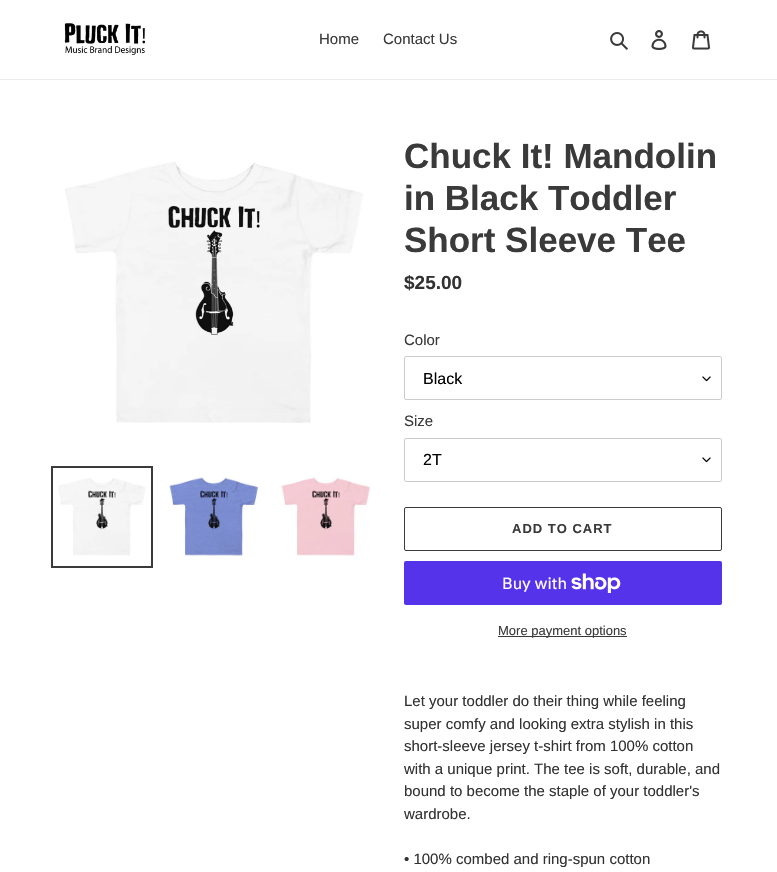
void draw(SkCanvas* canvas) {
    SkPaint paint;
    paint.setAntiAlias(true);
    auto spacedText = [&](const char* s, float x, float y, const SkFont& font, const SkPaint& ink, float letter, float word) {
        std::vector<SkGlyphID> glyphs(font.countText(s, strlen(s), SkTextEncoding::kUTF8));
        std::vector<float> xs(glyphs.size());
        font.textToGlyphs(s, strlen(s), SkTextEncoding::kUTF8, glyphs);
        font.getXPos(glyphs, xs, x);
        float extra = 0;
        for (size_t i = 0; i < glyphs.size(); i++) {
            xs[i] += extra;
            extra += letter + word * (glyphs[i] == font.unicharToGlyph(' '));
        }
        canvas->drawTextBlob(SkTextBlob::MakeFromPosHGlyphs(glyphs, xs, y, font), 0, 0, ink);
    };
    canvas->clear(0xFFFFFFFF);
    paint.setColor(0xFFEBEBEB);
    canvas->drawRect(SkRect::MakeXYWH(0, 79, 777, 1), paint);
    canvas->drawImageRect(SkImages::DeferredFromEncodedData(SkData::MakeFromFileName("img1.png")), SkRect::MakeXYWH(64, 23, 82, 32), SkSamplingOptions());
    SkFont font1(fontMgr->matchFamilyStyle("Liberation Sans", SkFontStyle::Normal()), 15);
    font1.setSubpixel(true);
    paint.setColor(0xFF3A3A3A);
    canvas->drawString("Home", 319, 44, font1, paint);
    canvas->drawString("Contact Us", 383, 44, font1, paint);
    canvas->drawImageRect(SkImages::DeferredFromEncodedData(SkData::MakeFromFileName("img2.png")), SkRect::MakeXYWH(610, 32, 18, 18), SkSamplingOptions());
    canvas->drawImageRect(SkImages::DeferredFromEncodedData(SkData::MakeFromFileName("img3.png")), SkRect::MakeXYWH(651, 30, 16, 20), SkSamplingOptions());
    canvas->drawImageRect(SkImages::DeferredFromEncodedData(SkData::MakeFromFileName("img4.png")), SkRect::MakeXYWH(692, 30, 18, 20), SkSamplingOptions());
    canvas->drawImageRect(SkImages::DeferredFromEncodedData(SkData::MakeFromFileName("img5.png")), SkRect::MakeXYWH(65, 161, 298, 262), SkSamplingOptions());
    paint.setStyle(SkPaint::kStroke_Style);
    paint.setStrokeWidth(2);
    canvas->drawRect(SkRect::MakeXYWH(52, 467, 100, 100), paint);
    canvas->drawImageRect(SkImages::DeferredFromEncodedData(SkData::MakeFromFileName("img6.png")), SkRect::MakeXYWH(58, 478, 88, 78), SkSamplingOptions());
    canvas->drawImageRect(SkImages::DeferredFromEncodedData(SkData::MakeFromFileName("img7.png")), SkRect::MakeXYWH(169, 477, 90, 79), SkSamplingOptions());
    canvas->drawImageRect(SkImages::DeferredFromEncodedData(SkData::MakeFromFileName("img8.png")), SkRect::MakeXYWH(281, 477, 89, 79), SkSamplingOptions());
    SkFont font2(fontMgr->matchFamilyStyle("Liberation Sans", SkFontStyle::Bold()), 35);
    font2.setSubpixel(true);
    paint.setStyle(SkPaint::kFill_Style);
    canvas->drawString("Chuck It! Mandolin", 404, 168, font2, paint);
    canvas->drawString("in Black Toddler", 404, 210, font2, paint);
    canvas->drawString("Short Sleeve Tee", 404, 252, font2, paint);
    SkFont font3(fontMgr->matchFamilyStyle("Liberation Sans", SkFontStyle::Bold()), 19);
    font3.setSubpixel(true);
    paint.setColor(0xFF333232);
    canvas->drawString("$25.00", 404, 289, font3, paint);
    paint.setColor(0xFF3A3A3A);
    canvas->drawString("Color", 404, 345, font1, paint);
    canvas->drawImageRect(SkImages::DeferredFromEncodedData(SkData::MakeFromFileName("img9.png")), SkRect::MakeXYWH(702, 376, 9, 6), SkSamplingOptions());
    paint.setStyle(SkPaint::kStroke_Style);
    paint.setStrokeWidth(1);
    paint.setColor(0xFFCCCCCC);
    canvas->drawRoundRect(SkRect::MakeXYWH(404.5f, 356.5f, 317, 43), 1.5f, 1.5f, paint);
    SkFont font4(fontMgr->matchFamilyStyle("Liberation Sans", SkFontStyle::Normal()), 16);
    font4.setSubpixel(true);
    paint.setStyle(SkPaint::kFill_Style);
    paint.setColor(0xFF000000);
    canvas->drawString("Black", 423, 384, font4, paint);
    paint.setColor(0xFF3A3A3A);
    canvas->drawString("Size", 404, 426, font1, paint);
    canvas->drawImageRect(SkImages::DeferredFromEncodedData(SkData::MakeFromFileName("img9.png")), SkRect::MakeXYWH(702, 457, 9, 6), SkSamplingOptions());
    paint.setStyle(SkPaint::kStroke_Style);
    paint.setColor(0xFFCCCCCC);
    canvas->drawRoundRect(SkRect::MakeXYWH(404.5f, 438.5f, 317, 43), 1.5f, 1.5f, paint);
    paint.setStyle(SkPaint::kFill_Style);
    paint.setColor(0xFF000000);
    canvas->drawString("2T", 423, 465, font4, paint);
    paint.setStyle(SkPaint::kStroke_Style);
    paint.setColor(0xFF3A3A3A);
    canvas->drawRoundRect(SkRect::MakeXYWH(404.5f, 507.5f, 317, 43), 1.5f, 1.5f, paint);
    SkFont font5(fontMgr->matchFamilyStyle("Liberation Sans", SkFontStyle::Bold()), 13);
    font5.setSubpixel(true);
    paint.setStyle(SkPaint::kFill_Style);
    spacedText("ADD TO CART", 512, 533, font5, paint, 1, 0);
    paint.setColor(0xFF5433EB);
    canvas->drawRoundRect(SkRect::MakeXYWH(404, 561, 318, 44), 2, 2, paint);
    SkFont font6(fontMgr->matchFamilyStyle("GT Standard", SkFontStyle::Normal()), 16);
    font6.setSubpixel(true);
    paint.setColor(0xFFFFFFFF);
    canvas->drawString("Buy with", 502, 589, font6, paint);
    canvas->drawImageRect(SkImages::DeferredFromEncodedData(SkData::MakeFromFileName("img10.png")), SkRect::MakeXYWH(571, 573, 50, 20), SkSamplingOptions());
    paint.setColor(0xFF3A3A3A);
    canvas->drawRect(SkRect::MakeXYWH(498, 636, 129, 1), paint);
    SkFont font7(fontMgr->matchFamilyStyle("Liberation Sans", SkFontStyle::Normal()), 13);
    font7.setSubpixel(true);
    canvas->drawString("More payment options", 498, 635, font7, paint);
    paint.setColor(0xFF333232);
    canvas->drawString("Let your toddler do their thing while feeling", 404, 706, font1, paint);
    canvas->drawString("super comfy and looking extra stylish in this", 404, 729, font1, paint);
    canvas->drawString("short-sleeve jersey t-shirt from 100% cotton", 404, 751, font1, paint);
    canvas->drawString("with a unique print. The tee is soft, durable, and", 404, 774, font1, paint);
    canvas->drawString("bound to become the staple of your toddler's", 404, 796, font1, paint);
    canvas->drawString("wardrobe.", 404, 819, font1, paint);
    canvas->drawString("• 100% combed and ring-spun cotton", 404, 864, font1, paint);
}
